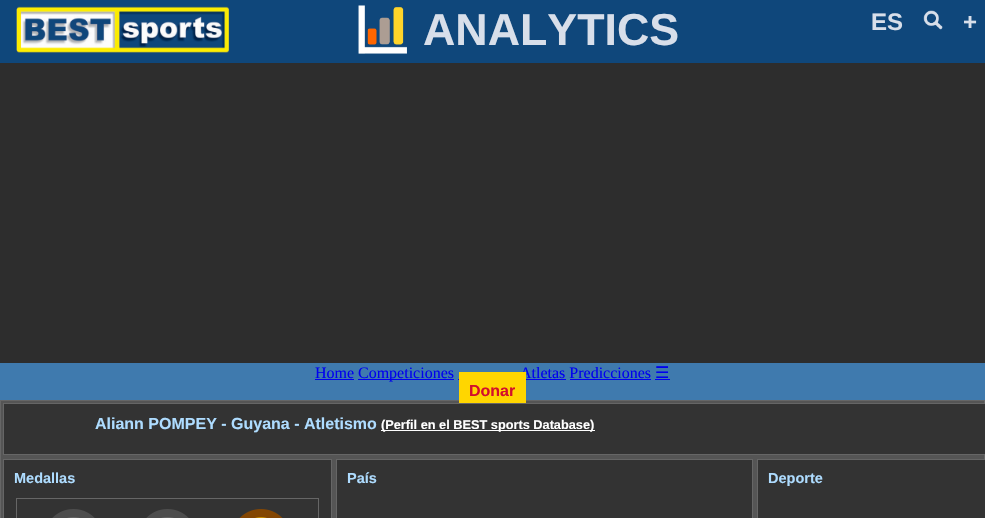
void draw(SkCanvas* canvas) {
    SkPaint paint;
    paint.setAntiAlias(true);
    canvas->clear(0xFF2D2D2D);
    paint.setColor(0xFF0F477B);
    canvas->drawRect(SkRect::MakeXYWH(0, 0, 985, 63), paint);
    canvas->drawImageRect(SkImages::DeferredFromEncodedData(SkData::MakeFromFileName("img1.png")), SkRect::MakeXYWH(16, 6, 214, 51), SkSamplingOptions());
    canvas->drawImageRect(SkImages::DeferredFromEncodedData(SkData::MakeFromFileName("img2.png")), SkRect::MakeXYWH(358, 5, 49, 49), SkSamplingOptions());
    SkFont font1(fontMgr->matchFamilyStyle("Liberation Sans", SkFontStyle::Bold()), 44.75f);
    font1.setSubpixel(true);
    paint.setColor(0xFFD8DFEA);
    canvas->drawString("ANALYTICS", 423, 45, font1, paint);
    SkFont font2(fontMgr->matchFamilyStyle("Liberation Sans", SkFontStyle::Bold()), 24);
    font2.setSubpixel(true);
    canvas->drawString("ES", 871, 30, font2, paint);
    canvas->drawImageRect(SkImages::DeferredFromEncodedData(SkData::MakeFromFileName("img3.png")), SkRect::MakeXYWH(923, 10, 20, 20), SkSamplingOptions());
    canvas->drawString("+", 963, 30, font2, paint);
    paint.setColor(0xFF3F7AAE);
    canvas->drawRect(SkRect::MakeXYWH(0, 363, 985, 37), paint);
    SkFont font3(fontMgr->matchFamilyStyle("Liberation Serif", SkFontStyle::Normal()), 16);
    font3.setSubpixel(true);
    paint.setColor(0xFF0000EE);
    canvas->drawString("Home", 315, 378, font3, paint);
    canvas->drawRect(SkRect::MakeXYWH(315, 379, 39, 1), paint);
    canvas->drawRect(SkRect::MakeXYWH(358, 379, 96, 1), paint);
    canvas->drawString("Competiciones", 358, 378, font3, paint);
    canvas->drawRect(SkRect::MakeXYWH(458, 379, 1, 1), paint);
    canvas->drawString("Atletas Predicciones", 520, 378, font3, paint);
    canvas->drawRect(SkRect::MakeXYWH(520, 379, 46, 1), paint);
    SkFont font4(fontMgr->matchFamilyStyle("DejaVu Sans", SkFontStyle::Normal()), 16);
    font4.setSubpixel(true);
    canvas->drawString("☰", 655, 378, font4, paint);
    canvas->drawRect(SkRect::MakeXYWH(655, 379, 15, 1), paint);
    canvas->drawRect(SkRect::MakeXYWH(570, 379, 81, 1), paint);
    paint.setColor(0xFF555555);
    canvas->drawRect(SkRect::MakeXYWH(0.5f, 400.5f, 984, 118), paint);
    paint.setStyle(SkPaint::kStroke_Style);
    paint.setStrokeWidth(1);
    paint.setColor(0xFF666666);
    canvas->drawRect(SkRect::MakeXYWH(0.5f, 400.5f, 984, 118), paint);
    paint.setStyle(SkPaint::kFill_Style);
    paint.setColor(0xFFFFD600);
    canvas->drawRect(SkRect::MakeXYWH(459, 372, 67, 31), paint);
    SkFont font5(fontMgr->matchFamilyStyle("Liberation Sans", SkFontStyle::Bold()), 16);
    font5.setSubpixel(true);
    paint.setColor(0xFFD30E2C);
    canvas->drawString("Donar", 469, 396, font5, paint);
    paint.setColor(0xFF333333);
    canvas->drawRect(SkRect::MakeXYWH(3.5f, 403.5f, 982, 51), paint);
    paint.setStyle(SkPaint::kStroke_Style);
    paint.setColor(0xFF666666);
    canvas->drawRect(SkRect::MakeXYWH(3.5f, 403.5f, 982, 51), paint);
    paint.setStyle(SkPaint::kFill_Style);
    paint.setColor(0xFFAEDCFF);
    canvas->drawString("Aliann POMPEY - Guyana - Atletismo", 95, 429, font5, paint);
    paint.setColor(0xFFFFFFFF);
    canvas->drawRect(SkRect::MakeXYWH(381, 430, 214, 1), paint);
    SkFont font6(fontMgr->matchFamilyStyle("Liberation Sans", SkFontStyle::Bold()), 12.75f);
    font6.setSubpixel(true);
    canvas->drawString("(Perfil en el BEST sports Database)", 381, 429, font6, paint);
    paint.setColor(0xFF333333);
    canvas->drawRect(SkRect::MakeXYWH(3.5f, 459.5f, 328, 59), paint);
    paint.setStyle(SkPaint::kStroke_Style);
    paint.setColor(0xFF666666);
    canvas->drawRect(SkRect::MakeXYWH(3.5f, 459.5f, 328, 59), paint);
    SkFont font7(fontMgr->matchFamilyStyle("Liberation Sans", SkFontStyle::Bold()), 14.5f);
    font7.setSubpixel(true);
    paint.setStyle(SkPaint::kFill_Style);
    paint.setColor(0xFFAEDCFF);
    canvas->drawString("Medallas", 14, 483, font7, paint);
    paint.setStyle(SkPaint::kStroke_Style);
    paint.setColor(0xFF666666);
    canvas->drawRect(SkRect::MakeXYWH(16.5f, 498.5f, 302, 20), paint);
    canvas->drawImageRect(SkImages::DeferredFromEncodedData(SkData::MakeFromFileName("img4.png")), SkRect::MakeXYWH(52, 509, 43, 9), SkSamplingOptions());
    canvas->drawImageRect(SkImages::DeferredFromEncodedData(SkData::MakeFromFileName("img4.png")), SkRect::MakeXYWH(146, 509, 43, 9), SkSamplingOptions());
    canvas->drawImageRect(SkImages::DeferredFromEncodedData(SkData::MakeFromFileName("img5.png")), SkRect::MakeXYWH(239, 509, 44, 9), SkSamplingOptions());
    paint.setStyle(SkPaint::kFill_Style);
    paint.setColor(0xFF333333);
    canvas->drawRect(SkRect::MakeXYWH(336.5f, 459.5f, 416, 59), paint);
    paint.setStyle(SkPaint::kStroke_Style);
    paint.setColor(0xFF666666);
    canvas->drawRect(SkRect::MakeXYWH(336.5f, 459.5f, 416, 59), paint);
    paint.setStyle(SkPaint::kFill_Style);
    paint.setColor(0xFFAEDCFF);
    canvas->drawString("País", 347, 483, font7, paint);
    paint.setColor(0xFF333333);
    canvas->drawRect(SkRect::MakeXYWH(757.5f, 459.5f, 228, 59), paint);
    paint.setStyle(SkPaint::kStroke_Style);
    paint.setColor(0xFF666666);
    canvas->drawRect(SkRect::MakeXYWH(757.5f, 459.5f, 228, 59), paint);
    paint.setStyle(SkPaint::kFill_Style);
    paint.setColor(0xFFAEDCFF);
    canvas->drawString("Deporte", 768, 483, font7, paint);
}
